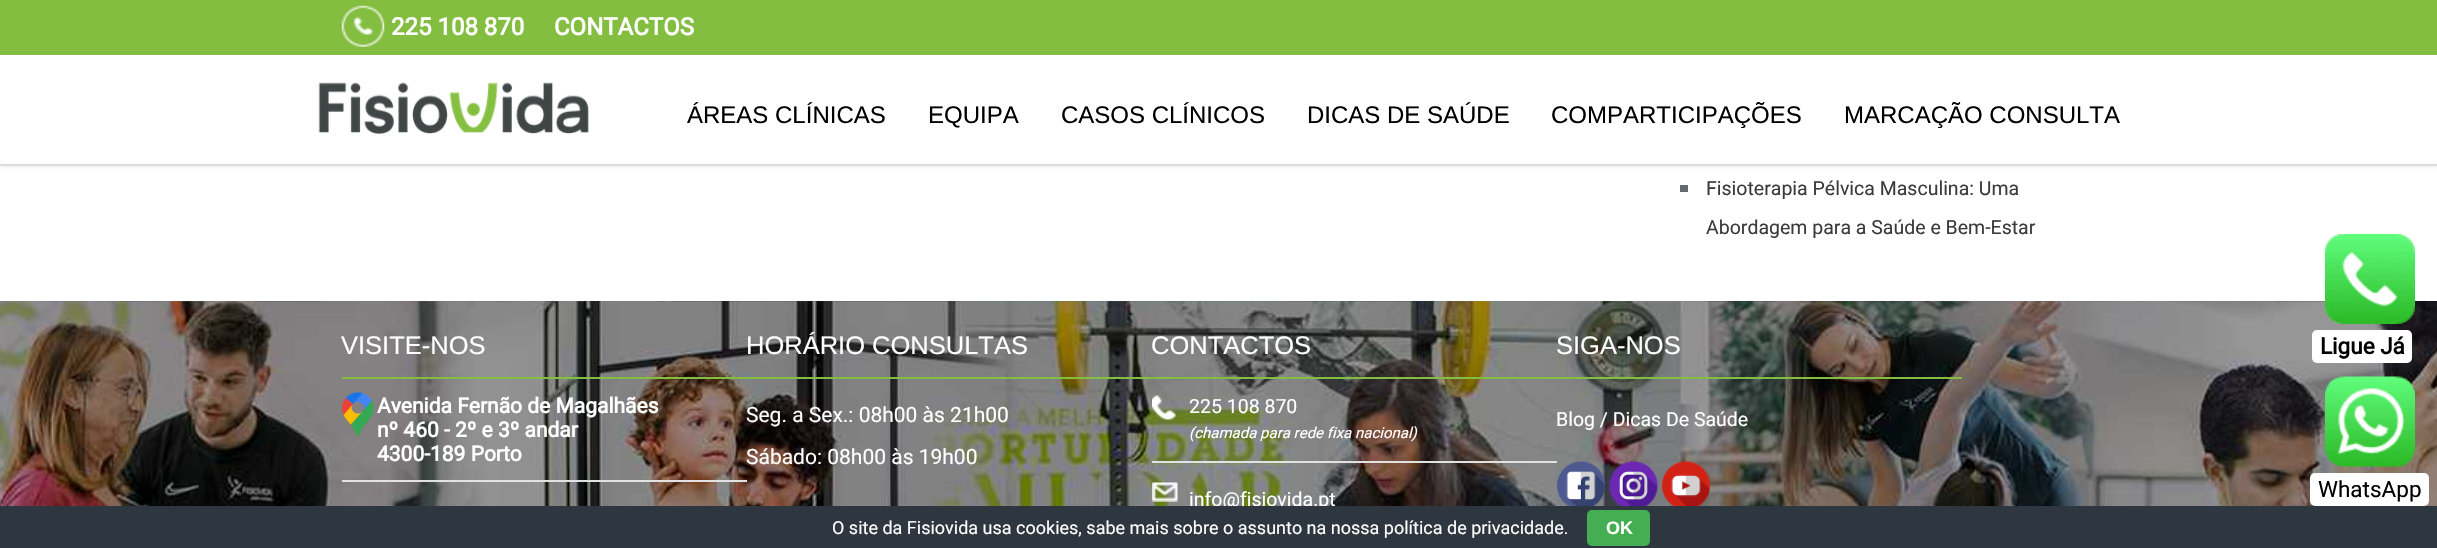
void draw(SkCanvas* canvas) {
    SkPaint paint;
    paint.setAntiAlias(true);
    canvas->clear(0xFFFFFFFF);
    paint.setColor(0xFFDCDCDC);
    paint.setMaskFilter(SkMaskFilter::MakeBlur(kNormal_SkBlurStyle, 3));
    canvas->drawRect(SkRect::MakeXYWH(0, 0, 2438, 165), paint);
    paint.setMaskFilter(nullptr);
    paint.setColor(0xFFFFFFFF);
    canvas->drawRect(SkRect::MakeXYWH(0, 55, 2437, 109), paint);
    paint.setColor(0xFFDCDCDC);
    canvas->drawRect(SkRect::MakeXYWH(0, 164, 2437, 2), paint);
    paint.setColor(0xFF84BE41);
    canvas->drawRect(SkRect::MakeXYWH(0, 0, 2437, 55), paint);
    canvas->drawImageRect(SkImages::DeferredFromEncodedData(SkData::MakeFromFileName("img1.png")), SkRect::MakeXYWH(341, 5, 44, 42), SkSamplingOptions());
    SkFont font1(fontMgr->matchFamilyStyle("Roboto", SkFontStyle::Bold()), 24);
    font1.setSubpixel(true);
    paint.setColor(0xFFFFFFFF);
    canvas->drawString("225 108 870", 391, 35, font1, paint);
    canvas->drawString("CONTACTOS", 554, 35, font1, paint);
    canvas->drawImageRect(SkImages::DeferredFromEncodedData(SkData::MakeFromFileName("img2.png")), SkRect::MakeXYWH(318, 82, 271, 52), SkSamplingOptions());
    SkFont font2(fontMgr->matchFamilyStyle("Liberation Sans", SkFontStyle::Normal()), 24);
    font2.setSubpixel(true);
    paint.setColor(0xFF000000);
    canvas->drawString("ÁREAS CLÍNICAS", 687, 123, font2, paint);
    canvas->drawString("EQUIPA", 928, 123, font2, paint);
    canvas->drawString("CASOS CLÍNICOS", 1061, 123, font2, paint);
    canvas->drawString("DICAS DE SAÚDE", 1307, 123, font2, paint);
    canvas->drawString("COMPARTICIPAÇÕES", 1551, 123, font2, paint);
    canvas->drawString("MARCAÇÃO CONSULTA", 1844, 123, font2, paint);
    paint.setColor(0xFF65686D);
    canvas->drawRect(SkRect::MakeXYWH(1680, 185, 8, 7), paint);
    SkFont font3(fontMgr->matchFamilyStyle("Roboto", SkFontStyle::Normal()), 19.5f);
    font3.setSubpixel(true);
    paint.setColor(0xFF3B3B3B);
    canvas->drawString("Fisioterapia Pélvica Masculina: Uma", 1706, 195, font3, paint);
    canvas->drawString("Abordagem para a Saúde e Bem-Estar", 1706, 234, font3, paint);
    canvas->drawImageRect(SkImages::DeferredFromEncodedData(SkData::MakeFromFileName("img3.png")), SkRect::MakeXYWH(0, 301, 2437, 205), SkSamplingOptions());
    paint.setColor(0xFF84BE41);
    canvas->drawRect(SkRect::MakeXYWH(342, 377, 1620, 2), paint);
    SkFont font4(fontMgr->matchFamilyStyle("Liberation Sans", SkFontStyle::Normal()), 25.5f);
    font4.setSubpixel(true);
    paint.setColor(0xFFFFFFFF);
    canvas->drawString("VISITE-NOS", 341, 354, font4, paint);
    canvas->drawImageRect(SkImages::DeferredFromEncodedData(SkData::MakeFromFileName("img4.png")), SkRect::MakeXYWH(342, 392, 32, 44), SkSamplingOptions());
    paint.setColor(0xFFE2E2E2);
    canvas->drawRect(SkRect::MakeXYWH(342, 480, 405, 2), paint);
    SkFont font5(fontMgr->matchFamilyStyle("Roboto", SkFontStyle::Bold()), 21);
    font5.setSubpixel(true);
    paint.setColor(0xFFFFFFFF);
    canvas->drawString("Avenida Fernão de Magalhães", 377, 413, font5, paint);
    canvas->drawString("nº 460 - 2º e 3º andar", 377, 437, font5, paint);
    canvas->drawString("4300-189 Porto", 377, 461, font5, paint);
    canvas->drawString("HORÁRIO CONSULTAS", 746, 354, font4, paint);
    SkFont font6(fontMgr->matchFamilyStyle("Roboto", SkFontStyle::Normal()), 21);
    font6.setSubpixel(true);
    canvas->drawString("Seg. a Sex.: 08h00 às 21h00", 746, 422, font6, paint);
    canvas->drawString("Sábado: 08h00 às 19h00", 746, 464, font6, paint);
    canvas->drawString("CONTACTOS", 1151, 354, font4, paint);
    canvas->drawImageRect(SkImages::DeferredFromEncodedData(SkData::MakeFromFileName("img5.png")), SkRect::MakeXYWH(1152, 395, 24, 25), SkSamplingOptions());
    paint.setColor(0xFFE2E2E2);
    canvas->drawRect(SkRect::MakeXYWH(1152, 461, 405, 2), paint);
    paint.setColor(0xFFFFFFFF);
    canvas->drawString("225 108 870", 1189, 413, font3, paint);
    SkFont font7(fontMgr->matchFamilyStyle("Roboto", SkFontStyle::Italic()), 15);
    font7.setSubpixel(true);
    canvas->drawString("(chamada para rede fixa nacional)", 1189, 438, font7, paint);
    canvas->drawImageRect(SkImages::DeferredFromEncodedData(SkData::MakeFromFileName("img6.png")), SkRect::MakeXYWH(1152, 482, 26, 20), SkSamplingOptions());
    canvas->drawString("info@fisiovida.pt", 1189, 506, font3, paint);
    canvas->drawString("SIGA-NOS", 1556, 354, font4, paint);
    canvas->drawString("Blog / Dicas De Saúde", 1556, 426, font3, paint);
    canvas->drawImageRect(SkImages::DeferredFromEncodedData(SkData::MakeFromFileName("img7.png")), SkRect::MakeXYWH(1557, 461, 48, 45), SkSamplingOptions());
    canvas->drawImageRect(SkImages::DeferredFromEncodedData(SkData::MakeFromFileName("img8.png")), SkRect::MakeXYWH(1609, 461, 49, 45), SkSamplingOptions());
    canvas->drawImageRect(SkImages::DeferredFromEncodedData(SkData::MakeFromFileName("img9.png")), SkRect::MakeXYWH(1662, 461, 48, 45), SkSamplingOptions());
    canvas->drawImageRect(SkImages::DeferredFromEncodedData(SkData::MakeFromFileName("img10.png")), SkRect::MakeXYWH(2325, 234, 90, 90), SkSamplingOptions());
    canvas->drawRoundRect(SkRect::MakeXYWH(2312, 330, 100, 33), 5, 5, paint);
    SkFont font8(fontMgr->matchFamilyStyle("Roboto", SkFontStyle::Bold()), 22.5f);
    font8.setSubpixel(true);
    paint.setColor(0xFF000000);
    canvas->drawString("Ligue Já", 2320, 354, font8, paint);
    canvas->drawImageRect(SkImages::DeferredFromEncodedData(SkData::MakeFromFileName("img11.png")), SkRect::MakeXYWH(2325, 376, 90, 91), SkSamplingOptions());
    paint.setColor(0xFFFFFFFF);
    canvas->drawRoundRect(SkRect::MakeXYWH(2310, 473, 119, 33), 5, 5, paint);
    SkFont font9(fontMgr->matchFamilyStyle("Roboto", SkFontStyle::Normal()), 22.5f);
    font9.setSubpixel(true);
    paint.setColor(0xFF000000);
    canvas->drawString("WhatsApp", 2318, 497, font9, paint);
    paint.setColor(0xFF2E363F);
    canvas->drawRect(SkRect::MakeXYWH(0, 506, 2437, 42), paint);
    SkFont font10(fontMgr->matchFamilyStyle("Roboto", SkFontStyle::Normal()), 18);
    font10.setSubpixel(true);
    paint.setColor(0xFFFFFFFF);
    canvas->drawString("O site da Fisiovida usa cookies, sabe mais sobre o assunto na nossa política de privacidade.", 832, 534, font10, paint);
    paint.setColor(0xFF45AE52);
    canvas->drawRoundRect(SkRect::MakeXYWH(1587, 510, 63, 36), 5, 5, paint);
    SkFont font11(fontMgr->matchFamilyStyle("Liberation Sans", SkFontStyle::Bold()), 18);
    font11.setSubpixel(true);
    paint.setColor(0xFFFFFFFF);
    canvas->drawString("OK", 1606, 534, font11, paint);
}
